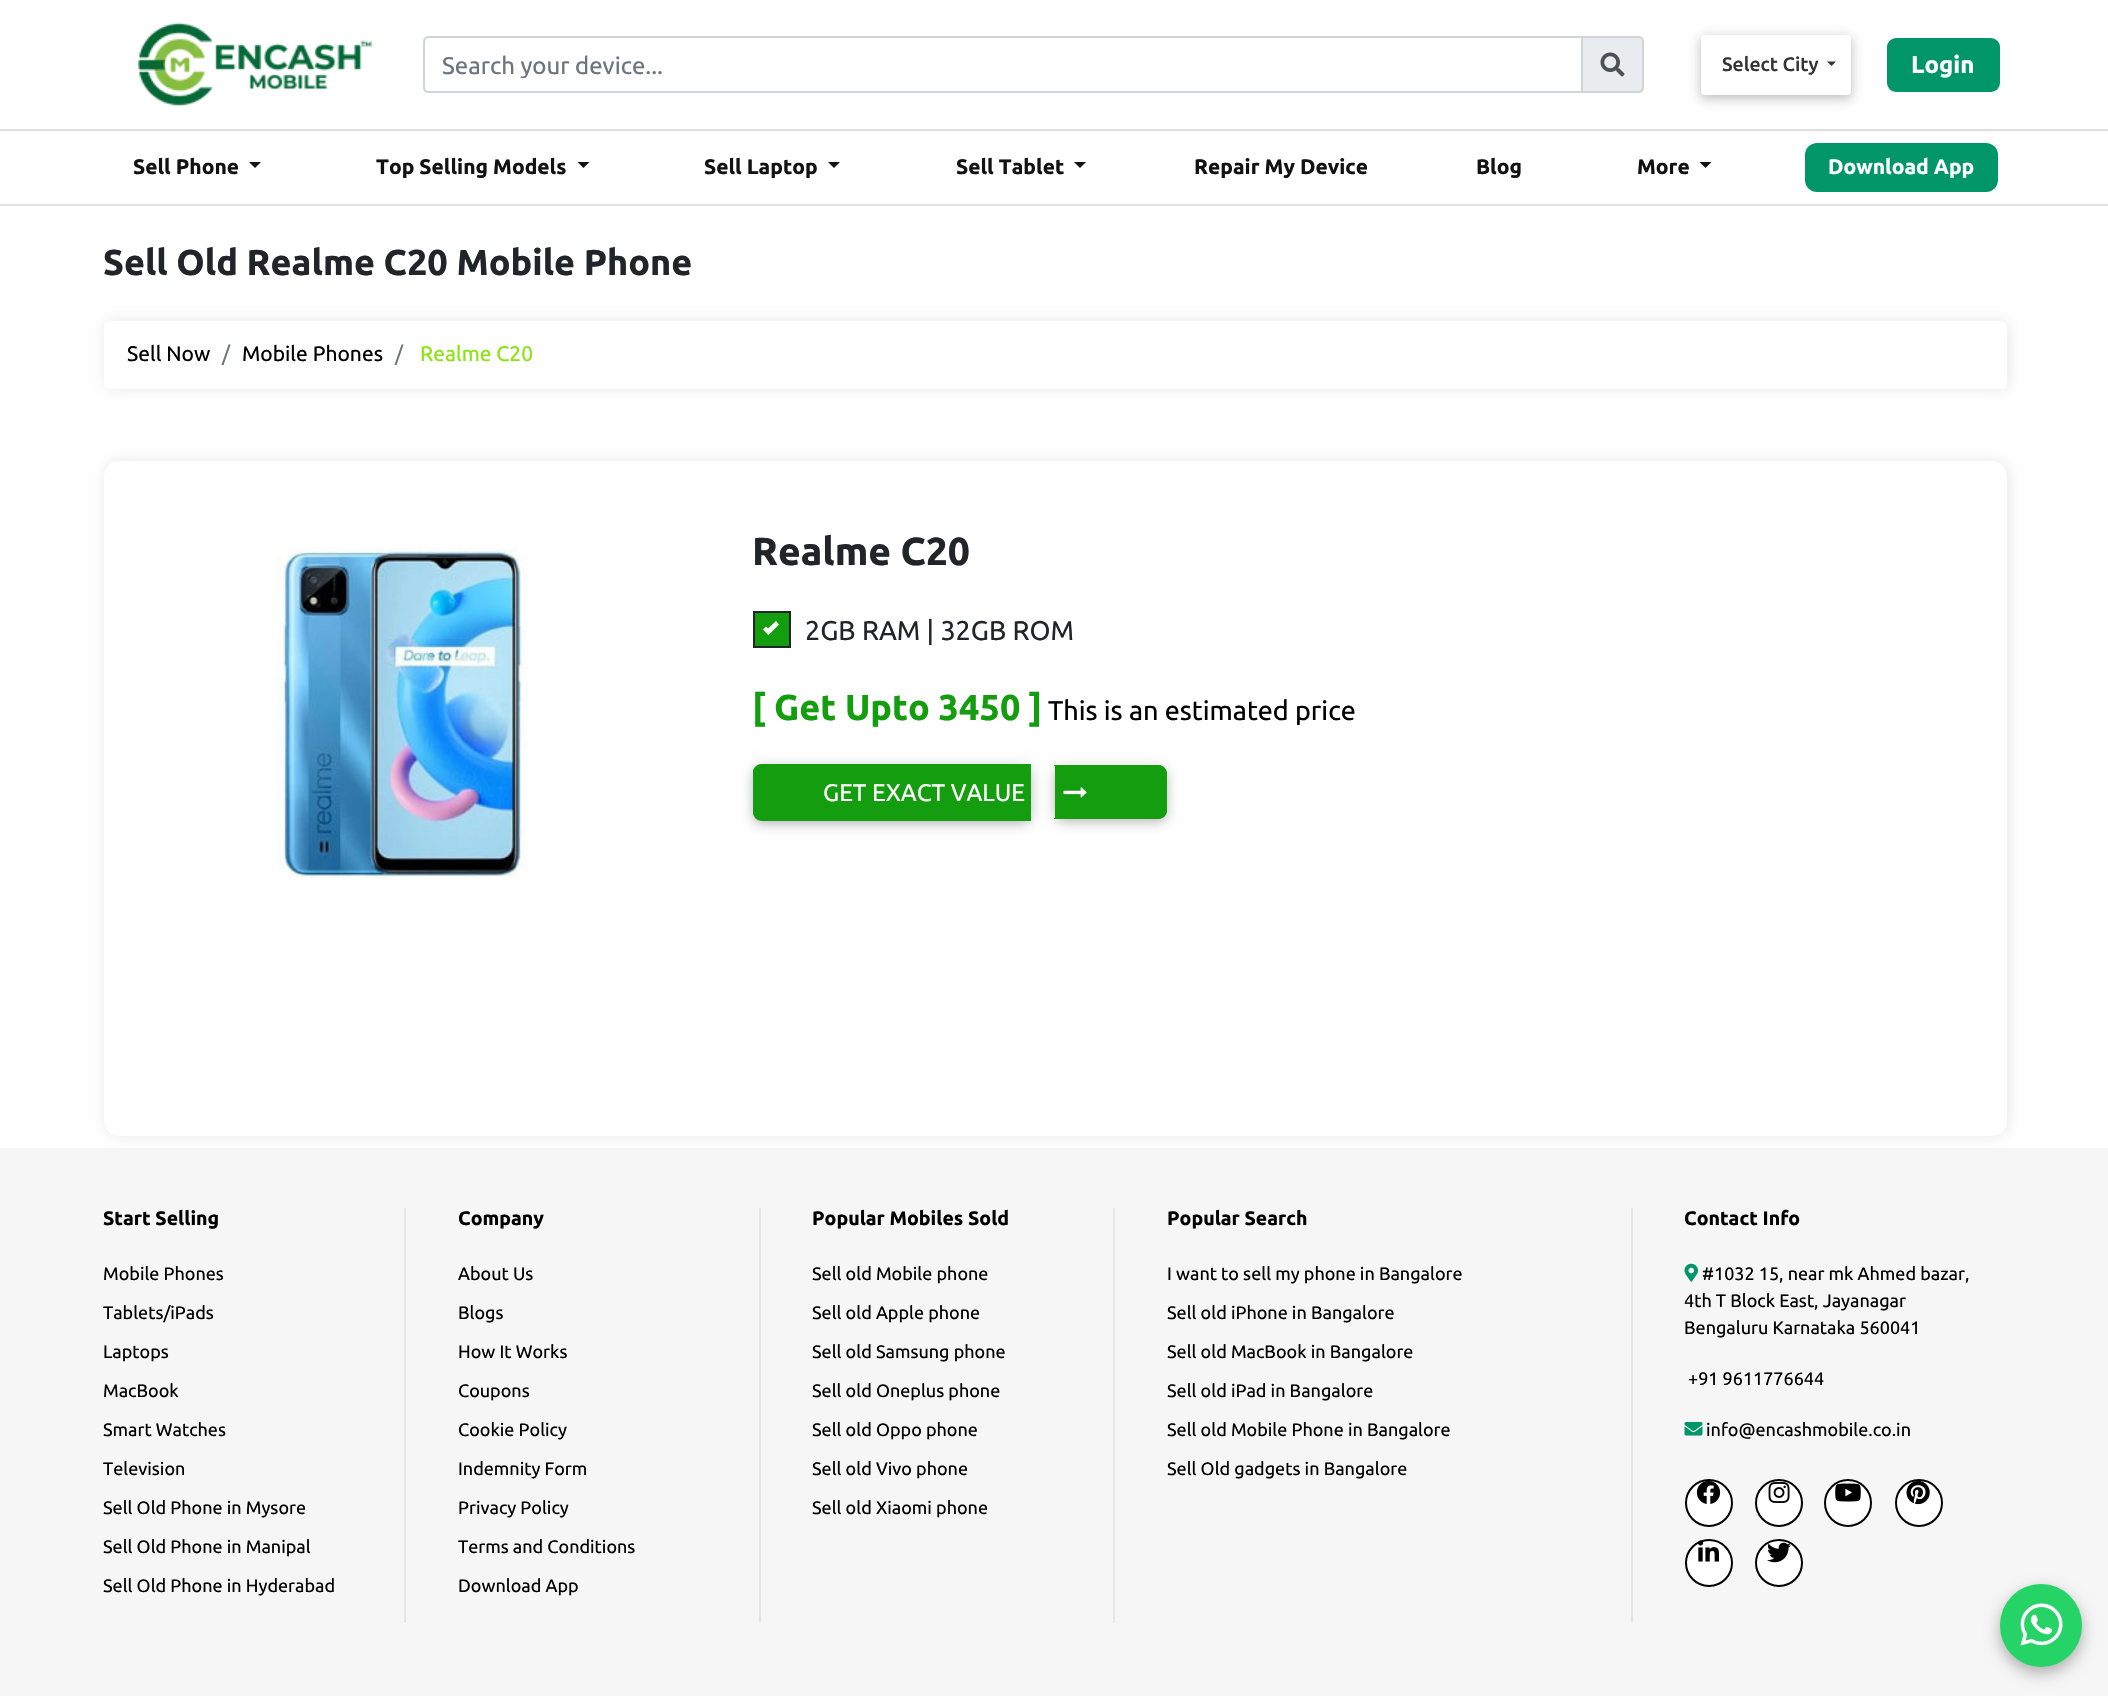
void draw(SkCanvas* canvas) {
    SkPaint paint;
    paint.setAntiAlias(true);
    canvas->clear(0xFFFFFFFF);
    paint.setColor(0xFFDDDDDD);
    canvas->drawRect(SkRect::MakeXYWH(0, 129, 2108, 2), paint);
    canvas->drawImageRect(SkImages::DeferredFromEncodedData(SkData::MakeFromFileName("img1.png")), SkRect::MakeXYWH(137, 22, 236, 85), SkSamplingOptions());
    paint.setColor(0xFFE9ECEF);
    canvas->drawPath(SkPathBuilder().moveTo(1582, 37).lineTo(1638, 37).cubicTo(1641, 37, 1643, 39, 1643, 42).lineTo(1643, 87).cubicTo(1643, 90, 1641, 92, 1638, 92).lineTo(1582, 92).close().detach(), paint);
    paint.setStyle(SkPaint::kStroke_Style);
    paint.setStrokeWidth(2);
    paint.setColor(0xFFCED4DA);
    canvas->drawPath(SkPathBuilder().moveTo(1582, 37).lineTo(1638, 37).cubicTo(1641, 37, 1643, 39, 1643, 42).lineTo(1643, 87).cubicTo(1643, 90, 1641, 92, 1638, 92).lineTo(1582, 92).close().detach(), paint);
    canvas->drawPath(SkPathBuilder().moveTo(429, 37).lineTo(1582, 37).lineTo(1582, 92).lineTo(429, 92).cubicTo(426, 92, 424, 90, 424, 87).lineTo(424, 42).cubicTo(424, 39, 426, 37, 429, 37).close().detach(), paint);
    canvas->save();
    canvas->clipRect(SkRect::MakeXYWH(443, 51, 1120, 27));
    SkFont font1(fontMgr->matchFamilyStyle("Ubuntu", SkFontStyle::Normal()), 24);
    font1.setSubpixel(true);
    paint.setStyle(SkPaint::kFill_Style);
    paint.setColor(0xFF6C757D);
    canvas->drawString("Search your device...", 442, 74, font1, paint);
    canvas->restore();
    canvas->drawImageRect(SkImages::DeferredFromEncodedData(SkData::MakeFromFileName("img2.png")), SkRect::MakeXYWH(1600, 52, 25, 25), SkSamplingOptions());
    canvas->save();
    canvas->clipPath(SkPathBuilder(SkPathFillType::kEvenOdd).moveTo(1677, 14).lineTo(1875, 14).lineTo(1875, 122).lineTo(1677, 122).close().moveTo(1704, 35).lineTo(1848, 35).cubicTo(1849.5f, 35, 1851, 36.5f, 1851, 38).lineTo(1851, 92).cubicTo(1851, 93.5f, 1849.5f, 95, 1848, 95).lineTo(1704, 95).cubicTo(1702.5f, 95, 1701, 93.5f, 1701, 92).lineTo(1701, 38).cubicTo(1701, 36.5f, 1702.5f, 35, 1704, 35).close().detach(), true);
    paint.setColor(0x1F000000);
    paint.setMaskFilter(SkMaskFilter::MakeBlur(kNormal_SkBlurStyle, 7.5f));
    canvas->drawRoundRect(SkRect::MakeXYWH(1701, 38, 150, 60), 3, 3, paint);
    paint.setMaskFilter(nullptr);
    canvas->restore();
    canvas->save();
    canvas->clipPath(SkPathBuilder(SkPathFillType::kEvenOdd).moveTo(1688, 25).lineTo(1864, 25).lineTo(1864, 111).lineTo(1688, 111).close().moveTo(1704, 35).lineTo(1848, 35).cubicTo(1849.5f, 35, 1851, 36.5f, 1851, 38).lineTo(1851, 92).cubicTo(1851, 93.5f, 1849.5f, 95, 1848, 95).lineTo(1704, 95).cubicTo(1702.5f, 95, 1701, 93.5f, 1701, 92).lineTo(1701, 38).cubicTo(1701, 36.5f, 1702.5f, 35, 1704, 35).close().detach(), true);
    paint.setColor(0x29000000);
    paint.setMaskFilter(SkMaskFilter::MakeBlur(kNormal_SkBlurStyle, 4));
    canvas->drawRoundRect(SkRect::MakeXYWH(1701, 38, 150, 60), 3, 3, paint);
    paint.setMaskFilter(nullptr);
    canvas->restore();
    SkFont font2(fontMgr->matchFamilyStyle("Ubuntu", SkFontStyle(500, SkFontStyle::kNormal_Width, SkFontStyle::kUpright_Slant)), 19.5f);
    font2.setSubpixel(true);
    paint.setColor(0xFF333333);
    canvas->drawString("Select City", 1722, 71, font2, paint);
    canvas->drawPath(SkPathBuilder().moveTo(1827, 61.5f).lineTo(1836, 61.5f).lineTo(1831.5f, 66).close().detach(), paint);
    paint.setColor(0xFF009668);
    canvas->drawRoundRect(SkRect::MakeXYWH(1887, 38, 113, 54), 9, 9, paint);
    SkFont font3(fontMgr->matchFamilyStyle("Ubuntu", SkFontStyle::Bold()), 24);
    font3.setSubpixel(true);
    paint.setColor(0xFFFFFFFF);
    canvas->drawString("Login", 1911, 73, font3, paint);
    paint.setColor(0xFFE2E2E2);
    canvas->drawRect(SkRect::MakeXYWH(0, 204, 2108, 2), paint);
    SkFont font4(fontMgr->matchFamilyStyle("Ubuntu", SkFontStyle::Bold()), 21);
    font4.setSubpixel(true);
    paint.setColor(0xFF121212);
    canvas->drawString("Sell Phone", 133, 174, font4, paint);
    canvas->drawPath(SkPathBuilder().moveTo(249, 162).lineTo(261, 162).lineTo(255, 168).close().detach(), paint);
    canvas->drawString("Top Selling Models", 376, 174, font4, paint);
    canvas->drawPath(SkPathBuilder().moveTo(577.5f, 162).lineTo(589.5f, 162).lineTo(583.5f, 168).close().detach(), paint);
    canvas->drawString("Sell Laptop", 704, 174, font4, paint);
    canvas->drawPath(SkPathBuilder().moveTo(828, 162).lineTo(840, 162).lineTo(834, 168).close().detach(), paint);
    canvas->drawString("Sell Tablet", 956, 174, font4, paint);
    canvas->drawPath(SkPathBuilder().moveTo(1074, 162).lineTo(1086, 162).lineTo(1080, 168).close().detach(), paint);
    canvas->drawString("Repair My Device", 1194, 174, font4, paint);
    canvas->drawString("Blog", 1476, 174, font4, paint);
    canvas->drawString("More", 1637, 174, font4, paint);
    canvas->drawPath(SkPathBuilder().moveTo(1699.5f, 162).lineTo(1711.5f, 162).lineTo(1705.5f, 168).close().detach(), paint);
    paint.setColor(0xFF009668);
    canvas->drawRoundRect(SkRect::MakeXYWH(1805, 143, 193, 49), 12, 12, paint);
    paint.setColor(0xFFFFFFFF);
    canvas->drawString("Download App", 1828, 174, font4, paint);
    SkFont font5(fontMgr->matchFamilyStyle("Ubuntu", SkFontStyle::Bold()), 36);
    font5.setSubpixel(true);
    paint.setColor(0xFF212529);
    canvas->drawString("Sell Old Realme C20 Mobile Phone", 103, 275, font5, paint);
    paint.setColor(0xFFEAE8E8);
    paint.setMaskFilter(SkMaskFilter::MakeBlur(kNormal_SkBlurStyle, 7));
    canvas->drawRoundRect(SkRect::MakeXYWH(105, 321, 1904, 68), 6, 6, paint);
    paint.setMaskFilter(nullptr);
    paint.setColor(0xFFFFFFFF);
    canvas->drawRoundRect(SkRect::MakeXYWH(104, 321, 1903, 68), 6, 6, paint);
    SkFont font6(fontMgr->matchFamilyStyle("Ubuntu", SkFontStyle::Normal()), 21);
    font6.setSubpixel(true);
    paint.setColor(0xFF000000);
    canvas->drawString("Sell Now", 127, 361, font6, paint);
    paint.setColor(0xFF6C757D);
    canvas->drawString("/", 222, 361, font6, paint);
    paint.setColor(0xFF000000);
    canvas->drawString("Mobile Phones", 242, 361, font6, paint);
    paint.setColor(0xFF6C757D);
    canvas->drawString("/", 395, 361, font6, paint);
    paint.setColor(0xFF8AE412);
    canvas->drawString("Realme C20", 420, 361, font6, paint);
    paint.setColor(0xFFF6F6F6);
    canvas->drawRect(SkRect::MakeXYWH(0, 1148, 2108, 548), paint);
    paint.setColor(0xFFEAE8E8);
    paint.setMaskFilter(SkMaskFilter::MakeBlur(kNormal_SkBlurStyle, 7));
    canvas->drawRoundRect(SkRect::MakeXYWH(105, 461, 1904, 675), 15, 15, paint);
    paint.setMaskFilter(nullptr);
    paint.setColor(0xFFFFFFFF);
    canvas->drawRoundRect(SkRect::MakeXYWH(104, 461, 1903, 675), 15, 15, paint);
    canvas->drawImageRect(SkImages::DeferredFromEncodedData(SkData::MakeFromFileName("img3.png")), SkRect::MakeXYWH(277, 548, 251, 331), SkSamplingOptions());
    SkFont font7(fontMgr->matchFamilyStyle("Ubuntu", SkFontStyle::Bold()), 39);
    font7.setSubpixel(true);
    paint.setColor(0xFF212529);
    canvas->drawString("Realme C20", 752, 565, font7, paint);
    paint.setColor(0xFF149D0F);
    canvas->drawRect(SkRect::MakeXYWH(754, 612, 36, 35), paint);
    paint.setStyle(SkPaint::kStroke_Style);
    paint.setColor(0xFF212529);
    canvas->drawRect(SkRect::MakeXYWH(754, 612, 36, 35), paint);
    paint.setStyle(SkPaint::kFill_Style);
    paint.setColor(0xFFFFFFFF);
    canvas->drawPath(SkPathBuilder().moveTo(776, 621).lineTo(779, 624.5f).lineTo(768.5f, 635).lineTo(765, 631.5f).close().detach(), paint);
    canvas->drawPath(SkPathBuilder().moveTo(766, 626.5f).lineTo(771.5f, 631.5f).lineTo(768.5f, 635).lineTo(763, 629.5f).close().detach(), paint);
    SkFont font8(fontMgr->matchFamilyStyle("Ubuntu", SkFontStyle::Normal()), 27);
    font8.setSubpixel(true);
    paint.setColor(0xFF212529);
    canvas->drawString("2GB RAM | 32GB ROM", 805, 640, font8, paint);
    paint.setColor(0xFF149D0F);
    canvas->drawString("[ Get Upto 3450 ]", 752, 720, font5, paint);
    paint.setColor(0xFF000000);
    canvas->drawString("This is an estimated price", 1048, 720, font8, paint);
    paint.setColor(0x1F000000);
    paint.setMaskFilter(SkMaskFilter::MakeBlur(kNormal_SkBlurStyle, 7.5f));
    canvas->drawRoundRect(SkRect::MakeXYWH(753, 767, 278, 57), 9, 9, paint);
    paint.setMaskFilter(nullptr);
    paint.setColor(0x29000000);
    paint.setMaskFilter(SkMaskFilter::MakeBlur(kNormal_SkBlurStyle, 4));
    canvas->drawRoundRect(SkRect::MakeXYWH(753, 767, 278, 57), 9, 9, paint);
    paint.setMaskFilter(nullptr);
    paint.setColor(0xFF149D0F);
    canvas->drawPath(SkPathBuilder().moveTo(762, 764).lineTo(1031, 764).lineTo(1031, 821).lineTo(762, 821).cubicTo(757, 821, 753, 817, 753, 812).lineTo(753, 773).cubicTo(753, 768, 757, 764, 762, 764).close().detach(), paint);
    canvas->drawPath(SkPathBuilder(SkPathFillType::kEvenOdd).moveTo(762, 764).lineTo(1030, 764).lineTo(1030, 820).lineTo(762, 820).cubicTo(757, 820, 753, 816, 753, 812).lineTo(753, 772).cubicTo(753, 768, 757, 764, 762, 764).close().moveTo(762, 765).lineTo(1030, 765).lineTo(1030, 819).lineTo(762, 819).cubicTo(758, 819, 754, 816, 754, 812).lineTo(754, 772).cubicTo(754, 768, 758, 765, 762, 765).close().detach(), paint);
    paint.setColor(0x1F000000);
    paint.setMaskFilter(SkMaskFilter::MakeBlur(kNormal_SkBlurStyle, 7.5f));
    canvas->drawRoundRect(SkRect::MakeXYWH(1055, 768, 112, 54), 9, 9, paint);
    paint.setMaskFilter(nullptr);
    paint.setColor(0x29000000);
    paint.setMaskFilter(SkMaskFilter::MakeBlur(kNormal_SkBlurStyle, 4));
    canvas->drawRoundRect(SkRect::MakeXYWH(1055, 768, 112, 54), 9, 9, paint);
    paint.setMaskFilter(nullptr);
    paint.setColor(0xFF149D0F);
    canvas->drawPath(SkPathBuilder().moveTo(1055, 765).lineTo(1158, 765).cubicTo(1163, 765, 1167, 769, 1167, 774).lineTo(1167, 810).cubicTo(1167, 815, 1163, 819, 1158, 819).lineTo(1055, 819).close().detach(), paint);
    canvas->drawPath(SkPathBuilder(SkPathFillType::kEvenOdd).moveTo(1054, 765).lineTo(1158, 765).cubicTo(1163, 765, 1167, 769, 1167, 774).lineTo(1167, 810).cubicTo(1167, 815, 1163, 819, 1158, 819).lineTo(1054, 819).close().moveTo(1054, 766).lineTo(1158, 766).cubicTo(1162, 766, 1166, 770, 1166, 774).lineTo(1166, 810).cubicTo(1166, 814, 1162, 818, 1158, 818).lineTo(1054, 818).close().detach(), paint);
    paint.setColor(0xFFFFFFFF);
    canvas->drawString("GET EXACT VALUE", 823, 801, font1, paint);
    canvas->drawImageRect(SkImages::DeferredFromEncodedData(SkData::MakeFromFileName("img4.png")), SkRect::MakeXYWH(1063, 787, 24, 11), SkSamplingOptions());
    paint.setColor(0xFFE5E7EB);
    canvas->drawRect(SkRect::MakeXYWH(404, 1208, 2, 415), paint);
    SkFont font9(fontMgr->matchFamilyStyle("Ubuntu", SkFontStyle::Bold()), 19.5f);
    font9.setSubpixel(true);
    paint.setColor(0xFF000000);
    canvas->drawString("Start Selling", 103, 1225, font9, paint);
    SkFont font10(fontMgr->matchFamilyStyle("Ubuntu", SkFontStyle::Normal()), 18);
    font10.setSubpixel(true);
    canvas->drawString("Mobile Phones", 103, 1280, font10, paint);
    canvas->drawString("Tablets/iPads", 103, 1319, font10, paint);
    canvas->drawString("Laptops", 103, 1358, font10, paint);
    canvas->drawString("MacBook", 103, 1397, font10, paint);
    canvas->drawString("Smart Watches", 103, 1436, font10, paint);
    canvas->drawString("Television", 103, 1475, font10, paint);
    canvas->drawString("Sell Old Phone in Mysore", 103, 1514, font10, paint);
    canvas->drawString("Sell Old Phone in Manipal", 103, 1553, font10, paint);
    canvas->drawString("Sell Old Phone in Hyderabad", 103, 1592, font10, paint);
    paint.setColor(0xFFE5E7EB);
    canvas->drawRect(SkRect::MakeXYWH(759, 1208, 2, 415), paint);
    paint.setColor(0xFF000000);
    canvas->drawString("Company", 458, 1225, font9, paint);
    canvas->drawString("About Us", 458, 1280, font10, paint);
    canvas->drawString("Blogs", 458, 1319, font10, paint);
    canvas->drawString("How It Works", 458, 1358, font10, paint);
    canvas->drawString("Coupons", 458, 1397, font10, paint);
    canvas->drawString("Cookie Policy", 458, 1436, font10, paint);
    canvas->drawString("Indemnity Form", 458, 1475, font10, paint);
    canvas->drawString("Privacy Policy", 458, 1514, font10, paint);
    canvas->drawString("Terms and Conditions", 458, 1553, font10, paint);
    canvas->drawString("Download App", 458, 1592, font10, paint);
    paint.setColor(0xFFE5E7EB);
    canvas->drawRect(SkRect::MakeXYWH(1113, 1208, 2, 415), paint);
    paint.setColor(0xFF000000);
    canvas->drawString("Popular Mobiles Sold", 812, 1225, font9, paint);
    canvas->drawString("Sell old Mobile phone", 812, 1280, font10, paint);
    canvas->drawString("Sell old Apple phone", 812, 1319, font10, paint);
    canvas->drawString("Sell old Samsung phone", 812, 1358, font10, paint);
    canvas->drawString("Sell old Oneplus phone", 812, 1397, font10, paint);
    canvas->drawString("Sell old Oppo phone", 812, 1436, font10, paint);
    canvas->drawString("Sell old Vivo phone", 812, 1475, font10, paint);
    canvas->drawString("Sell old Xiaomi phone", 812, 1514, font10, paint);
    paint.setColor(0xFFE5E7EB);
    canvas->drawRect(SkRect::MakeXYWH(1631, 1208, 2, 415), paint);
    paint.setColor(0xFF000000);
    canvas->drawString("Popular Search", 1167, 1225, font9, paint);
    canvas->drawString("I want to sell my phone in Bangalore", 1167, 1280, font10, paint);
    canvas->drawString("Sell old iPhone in Bangalore", 1167, 1319, font10, paint);
    canvas->drawString("Sell old MacBook in Bangalore", 1167, 1358, font10, paint);
    canvas->drawString("Sell old iPad in Bangalore", 1167, 1397, font10, paint);
    canvas->drawString("Sell old Mobile Phone in Bangalore", 1167, 1436, font10, paint);
    canvas->drawString("Sell Old gadgets in Bangalore", 1167, 1475, font10, paint);
    canvas->drawString("Contact Info", 1684, 1225, font9, paint);
    canvas->drawImageRect(SkImages::DeferredFromEncodedData(SkData::MakeFromFileName("img5.png")), SkRect::MakeXYWH(1684, 1263, 14, 19), SkSamplingOptions());
    canvas->drawString("#1032 15, near mk Ahmed bazar,", 1702, 1280, font10, paint);
    canvas->drawString("4th T Block East, Jayanagar", 1684, 1307, font10, paint);
    canvas->drawString("Bengaluru Karnataka 560041", 1684, 1334, font10, paint);
    canvas->drawString("+91 9611776644", 1688, 1385, font10, paint);
    canvas->drawImageRect(SkImages::DeferredFromEncodedData(SkData::MakeFromFileName("img6.png")), SkRect::MakeXYWH(1684, 1422, 19, 14), SkSamplingOptions());
    canvas->drawString("info@encashmobile.co.in", 1706, 1436, font10, paint);
    paint.setColor(0xFFFFFFFF);
    canvas->drawCircle(1709, 1503, 23, paint);
    paint.setStyle(SkPaint::kStroke_Style);
    paint.setColor(0xFF000000);
    canvas->drawCircle(1709, 1503, 23, paint);
    canvas->drawImageRect(SkImages::DeferredFromEncodedData(SkData::MakeFromFileName("img7.png")), SkRect::MakeXYWH(1696, 1481, 25, 23), SkSamplingOptions());
    paint.setStyle(SkPaint::kFill_Style);
    paint.setColor(0xFFFFFFFF);
    canvas->drawCircle(1779, 1503, 23, paint);
    paint.setStyle(SkPaint::kStroke_Style);
    paint.setColor(0xFF000000);
    canvas->drawCircle(1779, 1503, 23, paint);
    canvas->drawImageRect(SkImages::DeferredFromEncodedData(SkData::MakeFromFileName("img8.png")), SkRect::MakeXYWH(1768, 1482, 22, 21), SkSamplingOptions());
    paint.setStyle(SkPaint::kFill_Style);
    paint.setColor(0xFFFFFFFF);
    canvas->drawCircle(1848, 1503, 23, paint);
    paint.setStyle(SkPaint::kStroke_Style);
    paint.setColor(0xFF000000);
    canvas->drawCircle(1848, 1503, 23, paint);
    canvas->drawImageRect(SkImages::DeferredFromEncodedData(SkData::MakeFromFileName("img9.png")), SkRect::MakeXYWH(1835, 1483, 26, 19), SkSamplingOptions());
    paint.setStyle(SkPaint::kFill_Style);
    paint.setColor(0xFFFFFFFF);
    canvas->drawCircle(1919, 1503, 23, paint);
    paint.setStyle(SkPaint::kStroke_Style);
    paint.setColor(0xFF000000);
    canvas->drawCircle(1919, 1503, 23, paint);
    canvas->drawImageRect(SkImages::DeferredFromEncodedData(SkData::MakeFromFileName("img10.png")), SkRect::MakeXYWH(1906, 1481, 24, 24), SkSamplingOptions());
    paint.setStyle(SkPaint::kFill_Style);
    paint.setColor(0xFFFFFFFF);
    canvas->drawCircle(1709, 1563, 23, paint);
    paint.setStyle(SkPaint::kStroke_Style);
    paint.setColor(0xFF000000);
    canvas->drawCircle(1709, 1563, 23, paint);
    canvas->drawImageRect(SkImages::DeferredFromEncodedData(SkData::MakeFromFileName("img11.png")), SkRect::MakeXYWH(1698, 1540, 21, 22), SkSamplingOptions());
    paint.setStyle(SkPaint::kFill_Style);
    paint.setColor(0xFFFFFFFF);
    canvas->drawCircle(1779, 1563, 23, paint);
    paint.setStyle(SkPaint::kStroke_Style);
    paint.setColor(0xFF000000);
    canvas->drawCircle(1779, 1563, 23, paint);
    canvas->drawImageRect(SkImages::DeferredFromEncodedData(SkData::MakeFromFileName("img12.png")), SkRect::MakeXYWH(1767, 1542, 24, 21), SkSamplingOptions());
    paint.setStyle(SkPaint::kFill_Style);
    paint.setColor(0x4D000000);
    paint.setMaskFilter(SkMaskFilter::MakeBlur(kNormal_SkBlurStyle, 7.5f));
    canvas->drawRoundRect(SkRect::MakeXYWH(2000, 1590, 82, 83), 41, 41, paint);
    paint.setMaskFilter(nullptr);
    paint.setColor(0xFF25D366);
    canvas->drawRoundRect(SkRect::MakeXYWH(2000, 1584, 82, 83), 41, 41, paint);
    canvas->drawImageRect(SkImages::DeferredFromEncodedData(SkData::MakeFromFileName("img13.png")), SkRect::MakeXYWH(2020, 1603, 43, 43), SkSamplingOptions());
}
